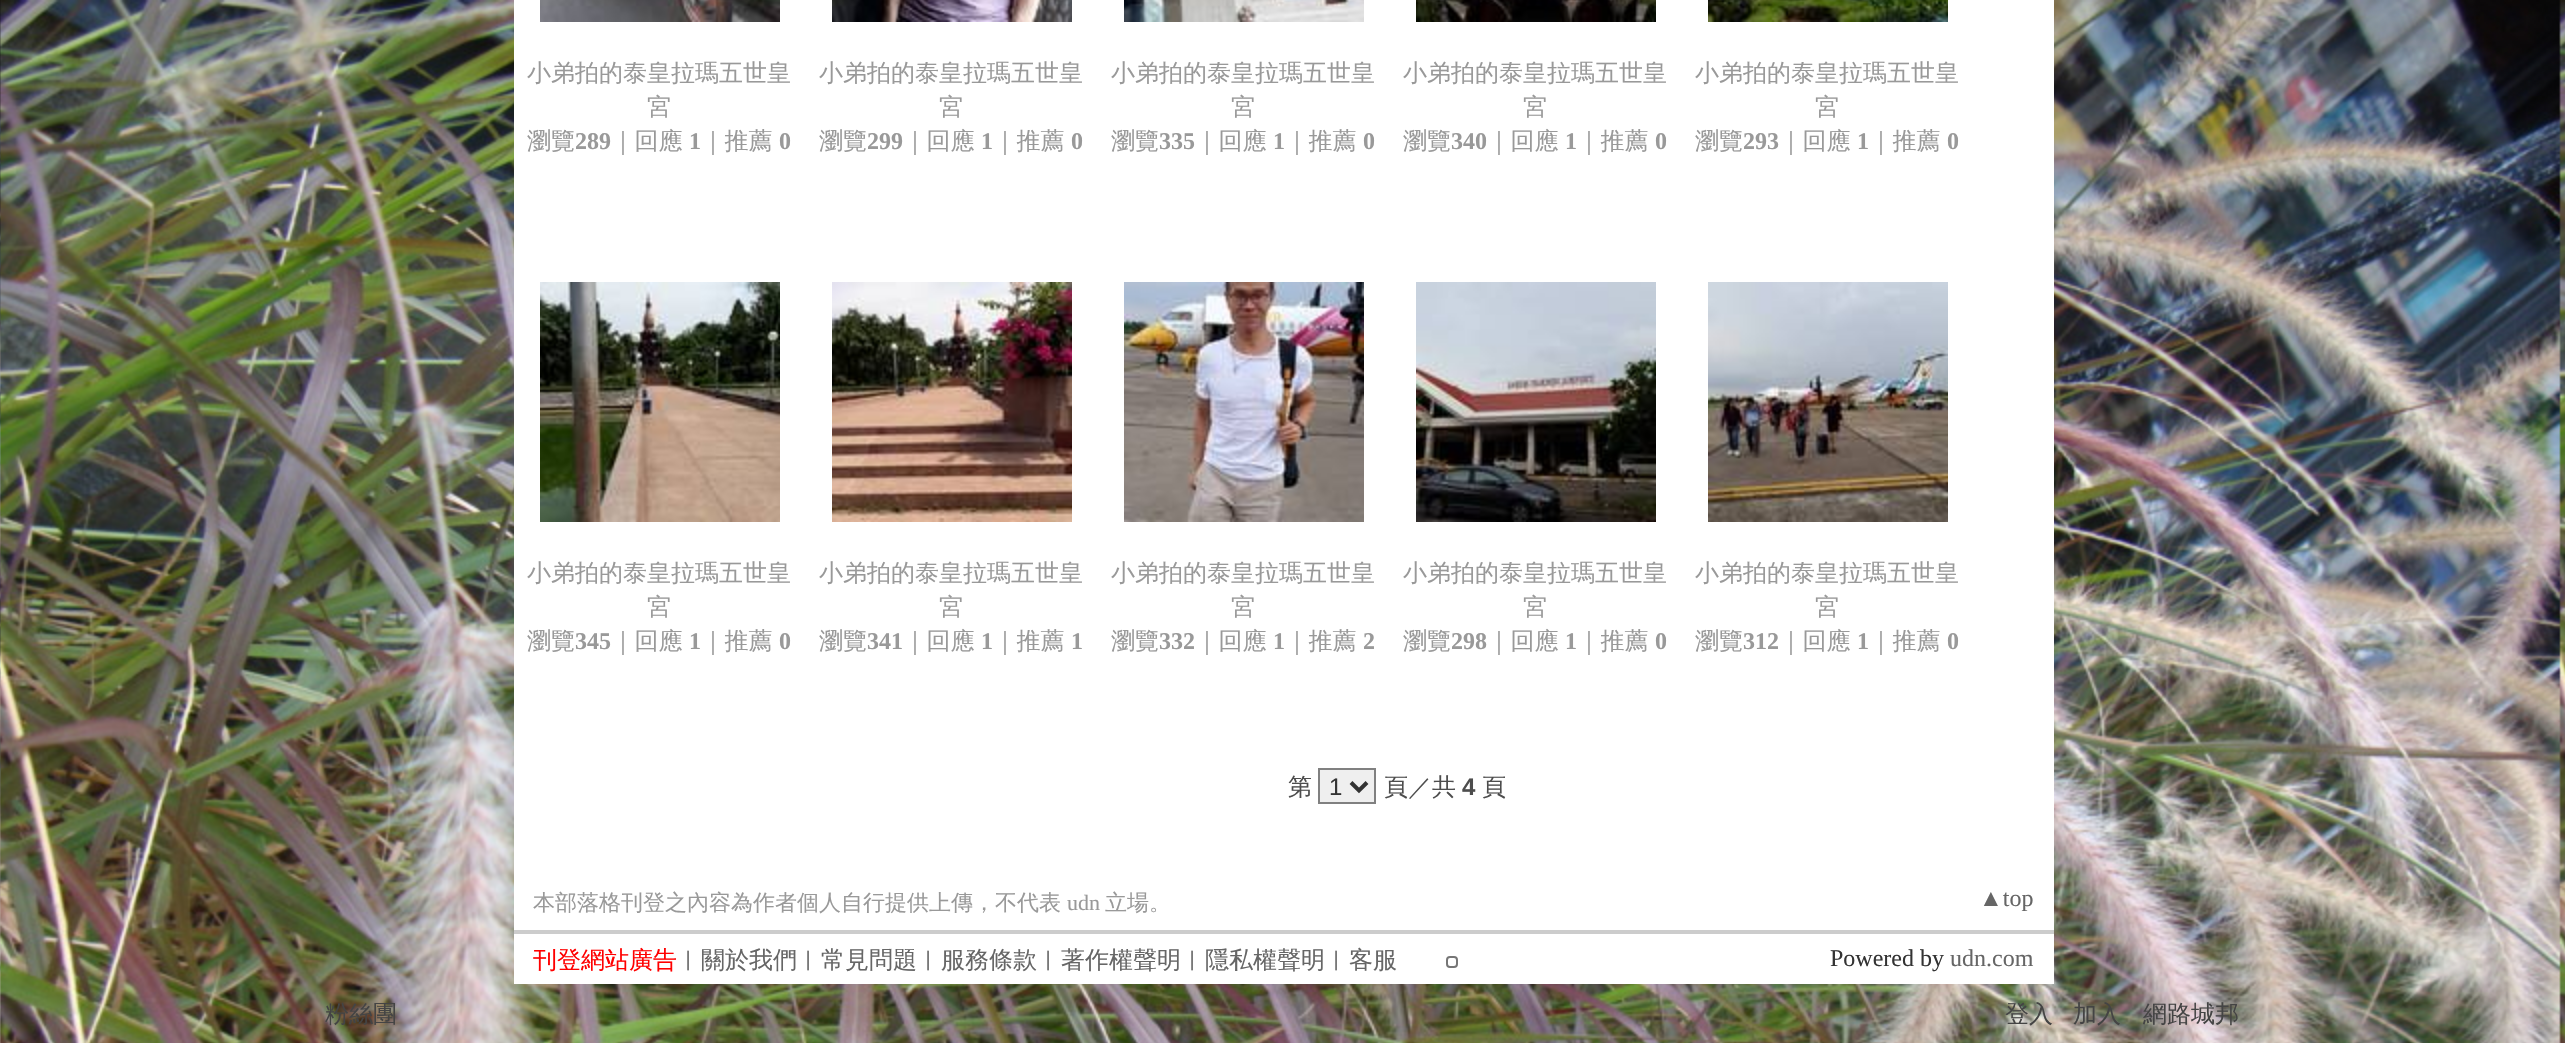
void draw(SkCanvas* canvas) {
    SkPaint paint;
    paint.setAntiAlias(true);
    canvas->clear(0xFFFFFFFF);
    canvas->drawImageRect(SkImages::DeferredFromEncodedData(SkData::MakeFromFileName("img1.png")), SkRect::MakeXYWH(0, 0, 2565, 1043), SkSamplingOptions());
    paint.setColor(0xFFFFFFFF);
    canvas->drawRect(SkRect::MakeXYWH(514, 0, 1540, 984), paint);
    canvas->drawImageRect(SkImages::DeferredFromEncodedData(SkData::MakeFromFileName("img2.png")), SkRect::MakeXYWH(540, 0, 240, 22), SkSamplingOptions());
    SkFont font1(fontMgr->matchFamilyStyle("WenQuanYi Zen Hei", SkFontStyle(500, SkFontStyle::kNormal_Width, SkFontStyle::kUpright_Slant)), 24);
    font1.setSubpixel(true);
    paint.setColor(0xFF999999);
    canvas->drawString("小弟拍的泰皇拉瑪五世皇", 527, 81, font1, paint);
    canvas->drawString("宮", 647, 115, font1, paint);
    canvas->drawString("瀏覽", 527, 149, font1, paint);
    SkFont font2(fontMgr->matchFamilyStyle("Liberation Serif", SkFontStyle::Bold()), 24);
    font2.setSubpixel(true);
    canvas->drawString("289", 575, 149, font2, paint);
    canvas->drawString("｜回應", 611, 149, font1, paint);
    canvas->drawString("1", 689, 149, font2, paint);
    canvas->drawString("｜推薦", 701, 149, font1, paint);
    canvas->drawString("0", 779, 149, font2, paint);
    canvas->drawImageRect(SkImages::DeferredFromEncodedData(SkData::MakeFromFileName("img3.png")), SkRect::MakeXYWH(832, 0, 240, 22), SkSamplingOptions());
    canvas->drawString("小弟拍的泰皇拉瑪五世皇", 819, 81, font1, paint);
    canvas->drawString("宮", 939, 115, font1, paint);
    canvas->drawString("瀏覽", 819, 149, font1, paint);
    canvas->drawString("299", 867, 149, font2, paint);
    canvas->drawString("｜回應", 903, 149, font1, paint);
    canvas->drawString("1", 981, 149, font2, paint);
    canvas->drawString("｜推薦", 993, 149, font1, paint);
    canvas->drawString("0", 1071, 149, font2, paint);
    canvas->drawImageRect(SkImages::DeferredFromEncodedData(SkData::MakeFromFileName("img4.png")), SkRect::MakeXYWH(1124, 0, 240, 22), SkSamplingOptions());
    canvas->drawString("小弟拍的泰皇拉瑪五世皇", 1111, 81, font1, paint);
    canvas->drawString("宮", 1231, 115, font1, paint);
    canvas->drawString("瀏覽", 1111, 149, font1, paint);
    canvas->drawString("335", 1159, 149, font2, paint);
    canvas->drawString("｜回應", 1195, 149, font1, paint);
    canvas->drawString("1", 1273, 149, font2, paint);
    canvas->drawString("｜推薦", 1285, 149, font1, paint);
    canvas->drawString("0", 1363, 149, font2, paint);
    canvas->drawImageRect(SkImages::DeferredFromEncodedData(SkData::MakeFromFileName("img5.png")), SkRect::MakeXYWH(1416, 0, 240, 22), SkSamplingOptions());
    canvas->drawString("小弟拍的泰皇拉瑪五世皇", 1403, 81, font1, paint);
    canvas->drawString("宮", 1523, 115, font1, paint);
    canvas->drawString("瀏覽", 1403, 149, font1, paint);
    canvas->drawString("340", 1451, 149, font2, paint);
    canvas->drawString("｜回應", 1487, 149, font1, paint);
    canvas->drawString("1", 1565, 149, font2, paint);
    canvas->drawString("｜推薦", 1577, 149, font1, paint);
    canvas->drawString("0", 1655, 149, font2, paint);
    canvas->drawImageRect(SkImages::DeferredFromEncodedData(SkData::MakeFromFileName("img6.png")), SkRect::MakeXYWH(1708, 0, 240, 22), SkSamplingOptions());
    canvas->drawString("小弟拍的泰皇拉瑪五世皇", 1695, 81, font1, paint);
    canvas->drawString("宮", 1815, 115, font1, paint);
    canvas->drawString("瀏覽", 1695, 149, font1, paint);
    canvas->drawString("293", 1743, 149, font2, paint);
    canvas->drawString("｜回應", 1779, 149, font1, paint);
    canvas->drawString("1", 1857, 149, font2, paint);
    canvas->drawString("｜推薦", 1869, 149, font1, paint);
    canvas->drawString("0", 1947, 149, font2, paint);
    canvas->drawImageRect(SkImages::DeferredFromEncodedData(SkData::MakeFromFileName("img7.png")), SkRect::MakeXYWH(540, 282, 240, 240), SkSamplingOptions());
    canvas->drawString("小弟拍的泰皇拉瑪五世皇", 527, 581, font1, paint);
    canvas->drawString("宮", 647, 615, font1, paint);
    canvas->drawString("瀏覽", 527, 649, font1, paint);
    canvas->drawString("345", 575, 649, font2, paint);
    canvas->drawString("｜回應", 611, 649, font1, paint);
    canvas->drawString("1", 689, 649, font2, paint);
    canvas->drawString("｜推薦", 701, 649, font1, paint);
    canvas->drawString("0", 779, 649, font2, paint);
    canvas->drawImageRect(SkImages::DeferredFromEncodedData(SkData::MakeFromFileName("img8.png")), SkRect::MakeXYWH(832, 282, 240, 240), SkSamplingOptions());
    canvas->drawString("小弟拍的泰皇拉瑪五世皇", 819, 581, font1, paint);
    canvas->drawString("宮", 939, 615, font1, paint);
    canvas->drawString("瀏覽", 819, 649, font1, paint);
    canvas->drawString("341", 867, 649, font2, paint);
    canvas->drawString("｜回應", 903, 649, font1, paint);
    canvas->drawString("1", 981, 649, font2, paint);
    canvas->drawString("｜推薦", 993, 649, font1, paint);
    canvas->drawString("1", 1071, 649, font2, paint);
    canvas->drawImageRect(SkImages::DeferredFromEncodedData(SkData::MakeFromFileName("img9.png")), SkRect::MakeXYWH(1124, 282, 240, 240), SkSamplingOptions());
    canvas->drawString("小弟拍的泰皇拉瑪五世皇", 1111, 581, font1, paint);
    canvas->drawString("宮", 1231, 615, font1, paint);
    canvas->drawString("瀏覽", 1111, 649, font1, paint);
    canvas->drawString("332", 1159, 649, font2, paint);
    canvas->drawString("｜回應", 1195, 649, font1, paint);
    canvas->drawString("1", 1273, 649, font2, paint);
    canvas->drawString("｜推薦", 1285, 649, font1, paint);
    canvas->drawString("2", 1363, 649, font2, paint);
    canvas->drawImageRect(SkImages::DeferredFromEncodedData(SkData::MakeFromFileName("img10.png")), SkRect::MakeXYWH(1416, 282, 240, 240), SkSamplingOptions());
    canvas->drawString("小弟拍的泰皇拉瑪五世皇", 1403, 581, font1, paint);
    canvas->drawString("宮", 1523, 615, font1, paint);
    canvas->drawString("瀏覽", 1403, 649, font1, paint);
    canvas->drawString("298", 1451, 649, font2, paint);
    canvas->drawString("｜回應", 1487, 649, font1, paint);
    canvas->drawString("1", 1565, 649, font2, paint);
    canvas->drawString("｜推薦", 1577, 649, font1, paint);
    canvas->drawString("0", 1655, 649, font2, paint);
    canvas->drawImageRect(SkImages::DeferredFromEncodedData(SkData::MakeFromFileName("img11.png")), SkRect::MakeXYWH(1708, 282, 240, 240), SkSamplingOptions());
    canvas->drawString("小弟拍的泰皇拉瑪五世皇", 1695, 581, font1, paint);
    canvas->drawString("宮", 1815, 615, font1, paint);
    canvas->drawString("瀏覽", 1695, 649, font1, paint);
    canvas->drawString("312", 1743, 649, font2, paint);
    canvas->drawString("｜回應", 1779, 649, font1, paint);
    canvas->drawString("1", 1857, 649, font2, paint);
    canvas->drawString("｜推薦", 1869, 649, font1, paint);
    canvas->drawString("0", 1947, 649, font2, paint);
    paint.setColor(0xFF4D4D4D);
    canvas->drawString("第", 1288, 795, font1, paint);
    paint.setColor(0xFFEFEFEF);
    canvas->drawRect(SkRect::MakeXYWH(1319, 769, 56, 34), paint);
    paint.setStyle(SkPaint::kStroke_Style);
    paint.setStrokeWidth(2);
    paint.setColor(0xFF808080);
    canvas->drawRect(SkRect::MakeXYWH(1319, 769, 56, 34), paint);
    paint.setStrokeWidth(4);
    paint.setColor(0xFF333333);
    canvas->drawPath(SkPathBuilder().moveTo(1351, 782.5f).lineTo(1359, 790.5f).lineTo(1367, 782.5f).detach(), paint);
    SkFont font3(fontMgr->matchFamilyStyle("Liberation Sans", SkFontStyle::Normal()), 24);
    font3.setSubpixel(true);
    paint.setStyle(SkPaint::kFill_Style);
    canvas->drawString("1", 1329, 795, font3, paint);
    paint.setColor(0xFF4D4D4D);
    canvas->drawString("頁／共", 1384, 795, font1, paint);
    SkFont font4(fontMgr->matchFamilyStyle("Liberation Sans", SkFontStyle::Bold()), 24);
    font4.setSubpixel(true);
    canvas->drawString("4", 1462, 795, font4, paint);
    canvas->drawString("頁", 1482, 795, font1, paint);
    paint.setColor(0xFFCCCCCC);
    canvas->drawRect(SkRect::MakeXYWH(514, 930, 1540, 4), paint);
    SkFont font5(fontMgr->matchFamilyStyle("WenQuanYi Zen Hei", SkFontStyle(500, SkFontStyle::kNormal_Width, SkFontStyle::kUpright_Slant)), 22);
    font5.setSubpixel(true);
    paint.setColor(0xFF999999);
    canvas->drawString("本部落格刊登之內容為作者個人自行提供上傳，不代表", 533, 910, font5, paint);
    SkFont font6(fontMgr->matchFamilyStyle("Liberation Serif", SkFontStyle::Normal()), 22);
    font6.setSubpixel(true);
    canvas->drawString("udn", 1067, 910, font6, paint);
    canvas->drawString("立場。", 1105, 910, font5, paint);
    SkFont font7(fontMgr->matchFamilyStyle("Liberation Serif", SkFontStyle::Normal()), 24);
    font7.setSubpixel(true);
    paint.setColor(0xFF666666);
    canvas->drawString("▲top", 1979, 906, font7, paint);
    paint.setColor(0xFFFF0000);
    canvas->drawString("刊登網站廣告", 533, 968, font1, paint);
    paint.setColor(0xFF333333);
    canvas->drawString("︱", 677, 968, font1, paint);
    paint.setColor(0xFF666666);
    canvas->drawString("關於我們", 701, 968, font1, paint);
    paint.setColor(0xFF333333);
    canvas->drawString("︱", 797, 968, font1, paint);
    paint.setColor(0xFF666666);
    canvas->drawString("常見問題", 821, 968, font1, paint);
    paint.setColor(0xFF333333);
    canvas->drawString("︱", 917, 968, font1, paint);
    paint.setColor(0xFF666666);
    canvas->drawString("服務條款", 941, 968, font1, paint);
    paint.setColor(0xFF333333);
    canvas->drawString("︱", 1037, 968, font1, paint);
    paint.setColor(0xFF666666);
    canvas->drawString("著作權聲明", 1061, 968, font1, paint);
    paint.setColor(0xFF333333);
    canvas->drawString("︱", 1181, 968, font1, paint);
    paint.setColor(0xFF666666);
    canvas->drawString("隱私權聲明", 1205, 968, font1, paint);
    paint.setColor(0xFF333333);
    canvas->drawString("︱", 1325, 968, font1, paint);
    paint.setColor(0xFF666666);
    canvas->drawString("客服", 1349, 968, font1, paint);
    paint.setStyle(SkPaint::kStroke_Style);
    paint.setStrokeWidth(2);
    paint.setColor(0xFF767676);
    canvas->drawRoundRect(SkRect::MakeXYWH(1447, 957, 10, 10), 3, 3, paint);
    paint.setStyle(SkPaint::kFill_Style);
    paint.setColor(0xFF333333);
    canvas->drawString("Powered by", 1830, 966, font7, paint);
    paint.setColor(0xFF666666);
    canvas->drawString("udn.com", 1950, 966, font7, paint);
    paint.setColor(0xFF444444);
    canvas->drawString("粉絲團", 325, 1022, font1, paint);
    canvas->drawString("登入", 2005, 1022, font1, paint);
    canvas->drawString("加入", 2073, 1022, font1, paint);
    canvas->drawString("網路城邦", 2143, 1022, font1, paint);
}
